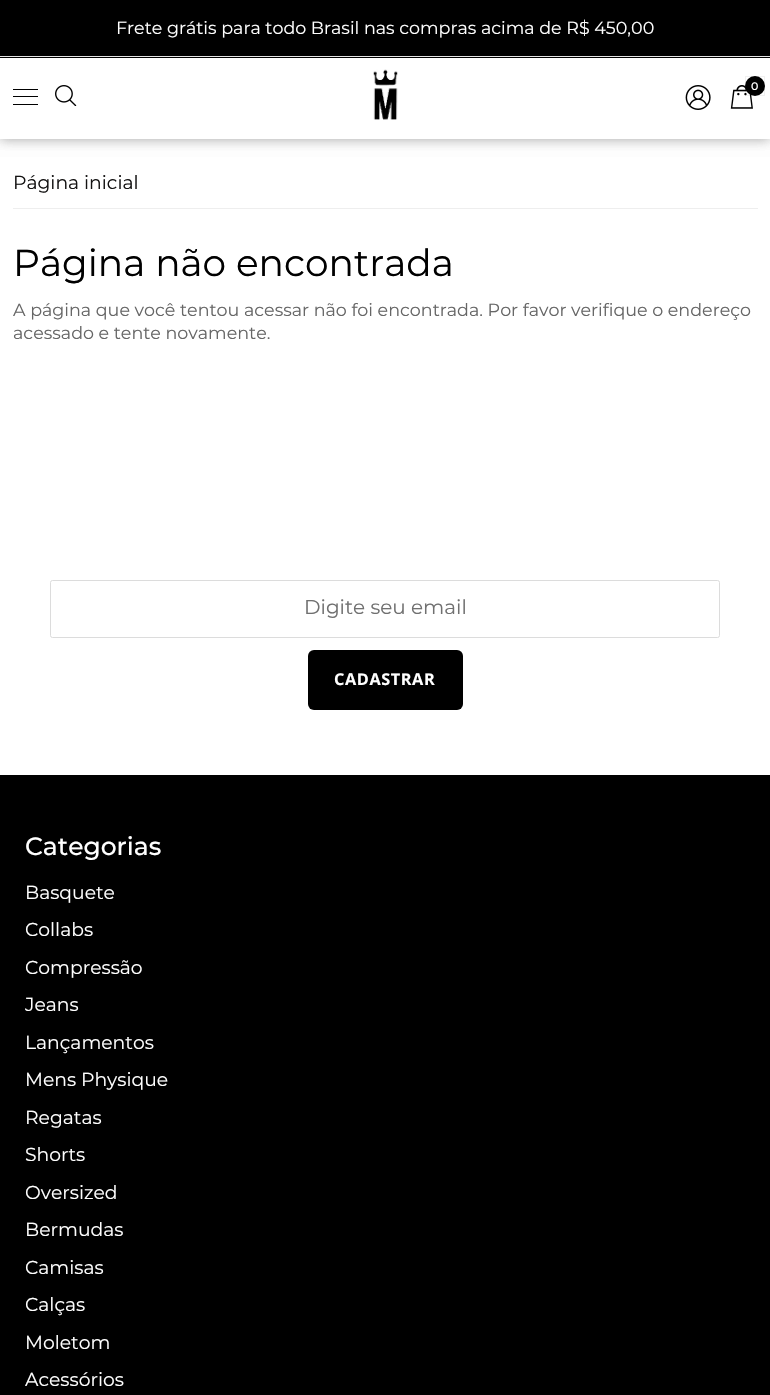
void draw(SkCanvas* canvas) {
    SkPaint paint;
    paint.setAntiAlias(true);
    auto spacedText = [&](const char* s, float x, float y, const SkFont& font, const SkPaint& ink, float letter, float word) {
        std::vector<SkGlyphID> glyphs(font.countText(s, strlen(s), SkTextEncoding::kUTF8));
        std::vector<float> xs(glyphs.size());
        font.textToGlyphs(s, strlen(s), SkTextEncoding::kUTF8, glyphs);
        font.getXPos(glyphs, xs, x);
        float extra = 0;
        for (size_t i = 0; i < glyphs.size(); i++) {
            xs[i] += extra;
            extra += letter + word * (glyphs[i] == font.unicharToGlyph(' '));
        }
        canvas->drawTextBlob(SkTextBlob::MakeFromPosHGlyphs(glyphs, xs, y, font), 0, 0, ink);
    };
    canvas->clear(0xFFFFFFFF);
    paint.setColor(0x30000000);
    paint.setMaskFilter(SkMaskFilter::MakeBlur(kNormal_SkBlurStyle, 6));
    canvas->drawRect(SkRect::MakeXYWH(0, 55, 770, 84), paint);
    paint.setMaskFilter(nullptr);
    paint.setMaskFilter(SkMaskFilter::MakeBlur(kNormal_SkBlurStyle, 6));
    canvas->drawRect(SkRect::MakeXYWH(0, 55, 770, 84), paint);
    paint.setMaskFilter(nullptr);
    paint.setColor(0xFF000000);
    canvas->drawRect(SkRect::MakeXYWH(0, 0, 770, 58), paint);
    paint.setColor(0xFFE5E5E5);
    canvas->drawRect(SkRect::MakeXYWH(0, 56, 770, 1), paint);
    SkFont font1(fontMgr->matchFamilyStyle("Montserrat", SkFontStyle::Normal()), 17.5f);
    font1.setSubpixel(true);
    paint.setColor(0xFFFFFFFF);
    canvas->drawString("Frete grátis para todo Brasil nas compras acima de R$ 450,00", 116, 34, font1, paint);
    paint.setColor(0xFFEEEEEE);
    canvas->drawRect(SkRect::MakeXYWH(13, 208, 745, 1), paint);
    SkFont font2(fontMgr->matchFamilyStyle("Montserrat", SkFontStyle::Normal()), 18.75f);
    font2.setSubpixel(true);
    paint.setColor(0xFF141313);
    canvas->drawString("Página inicial", 13, 189, font2, paint);
    SkFont font3(fontMgr->matchFamilyStyle("Montserrat", SkFontStyle::Normal()), 37.5f);
    font3.setSubpixel(true);
    paint.setColor(0xFF000000);
    canvas->drawString("Página não encontrada", 13, 276, font3, paint);
    paint.setColor(0xFF666666);
    canvas->drawString("A página que você tentou acessar não foi encontrada. Por favor verifique o endereço", 13, 316, font1, paint);
    canvas->drawString("acessado e tente novamente.", 13, 339, font1, paint);
    paint.setStyle(SkPaint::kStroke_Style);
    paint.setStrokeWidth(1);
    paint.setColor(0xFFDCDCDC);
    canvas->drawRoundRect(SkRect::MakeXYWH(50.5f, 580.5f, 669, 57), 2, 2, paint);
    SkFont font4(fontMgr->matchFamilyStyle("Montserrat", SkFontStyle::Normal()), 20);
    font4.setSubpixel(true);
    paint.setStyle(SkPaint::kFill_Style);
    paint.setColor(0xFF707070);
    canvas->drawString("Digite seu email", 304, 614, font4, paint);
    paint.setColor(0xFF000000);
    canvas->drawRoundRect(SkRect::MakeXYWH(308, 650, 155, 60), 6, 6, paint);
    SkFont font5(fontMgr->matchFamilyStyle("Open Sans", SkFontStyle::Bold()), 16.25f);
    font5.setSubpixel(true);
    paint.setColor(0xFFFFFFFF);
    spacedText("CADASTRAR", 334, 685, font5, paint, 0.6f, 0);
    paint.setColor(0xFF000000);
    canvas->drawRect(SkRect::MakeXYWH(0, 775, 770, 620), paint);
    SkFont font6(fontMgr->matchFamilyStyle("Montserrat", SkFontStyle(500, SkFontStyle::kNormal_Width, SkFontStyle::kUpright_Slant)), 25);
    font6.setSubpixel(true);
    paint.setColor(0xFFFFFFFF);
    canvas->drawString("Categorias", 25, 855, font6, paint);
    canvas->drawString("Basquete", 25, 899, font2, paint);
    canvas->drawString("Collabs", 25, 936, font2, paint);
    canvas->drawString("Compressão", 25, 974, font2, paint);
    canvas->drawString("Jeans", 25, 1011, font2, paint);
    canvas->drawString("Lançamentos", 25, 1049, font2, paint);
    canvas->drawString("Mens Physique", 25, 1086, font2, paint);
    canvas->drawString("Regatas", 25, 1124, font2, paint);
    canvas->drawString("Shorts", 25, 1161, font2, paint);
    canvas->drawString("Oversized", 25, 1199, font2, paint);
    canvas->drawString("Bermudas", 25, 1236, font2, paint);
    canvas->drawString("Camisas", 25, 1274, font2, paint);
    canvas->drawString("Calças", 25, 1311, font2, paint);
    canvas->drawString("Moletom", 25, 1349, font2, paint);
    canvas->drawString("Acessórios", 25, 1386, font2, paint);
    canvas->drawRect(SkRect::MakeXYWH(0, 58, 770, 81), paint);
    paint.setColor(0xFF000000);
    canvas->drawRect(SkRect::MakeXYWH(13, 89, 25, 1), paint);
    canvas->drawRect(SkRect::MakeXYWH(13, 96, 25, 1), paint);
    canvas->drawRect(SkRect::MakeXYWH(13, 104, 25, 1), paint);
    canvas->drawImageRect(SkImages::DeferredFromEncodedData(SkData::MakeFromFileName("img1.png")), SkRect::MakeXYWH(55, 85, 22, 21), SkSamplingOptions());
    canvas->drawImageRect(SkImages::DeferredFromEncodedData(SkData::MakeFromFileName("img2.png")), SkRect::MakeXYWH(373, 69, 25, 51), SkSamplingOptions());
    canvas->drawImageRect(SkImages::DeferredFromEncodedData(SkData::MakeFromFileName("img3.png")), SkRect::MakeXYWH(685, 85, 26, 25), SkSamplingOptions());
    canvas->drawImageRect(SkImages::DeferredFromEncodedData(SkData::MakeFromFileName("img4.png")), SkRect::MakeXYWH(730, 85, 23, 24), SkSamplingOptions());
    canvas->drawCircle(755, 86, 10, paint);
    paint.setStyle(SkPaint::kStroke_Style);
    paint.setColor(0x0F000000);
    canvas->drawRect(SkRect::MakeXYWH(745.5f, 76.5f, 19, 19), paint);
    SkFont font7(fontMgr->matchFamilyStyle("Montserrat", SkFontStyle(500, SkFontStyle::kNormal_Width, SkFontStyle::kUpright_Slant)), 11);
    font7.setSubpixel(true);
    paint.setStyle(SkPaint::kFill_Style);
    paint.setColor(0xFFFFFFFF);
    canvas->drawString("0", 751, 90, font7, paint);
}
